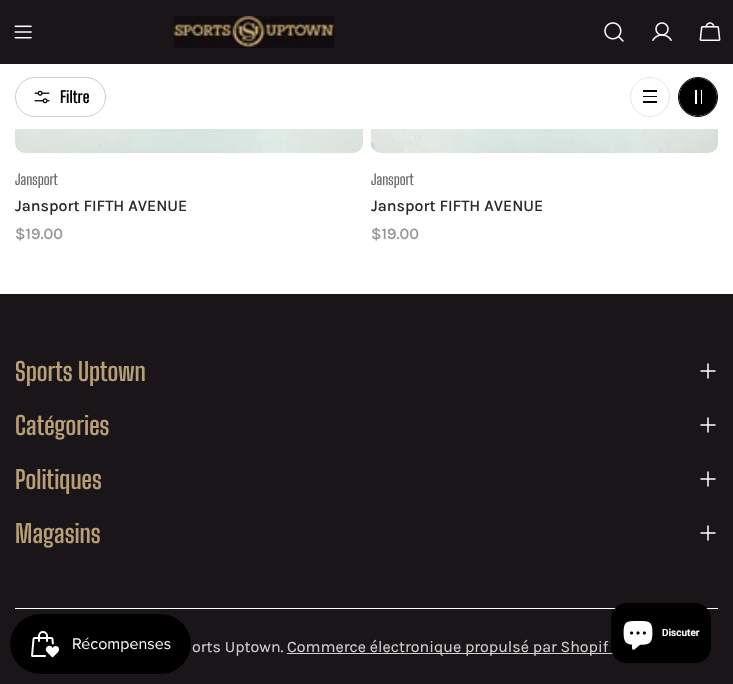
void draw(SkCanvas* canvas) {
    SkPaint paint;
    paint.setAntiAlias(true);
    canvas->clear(0xFFFFFFFF);
    paint.setColor(0xFFF8F8F8);
    canvas->drawRoundRect(SkRect::MakeXYWH(15, -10, 348, 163), 10, 10, paint);
    canvas->drawRoundRect(SkRect::MakeXYWH(371, -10, 347, 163), 10, 10, paint);
    paint.setColor(0xFF191518);
    canvas->drawRect(SkRect::MakeXYWH(0, 0, 733, 64), paint);
    canvas->drawImageRect(SkImages::DeferredFromEncodedData(SkData::MakeFromFileName("img1.png")), SkRect::MakeXYWH(14, 25, 18, 14), SkSamplingOptions());
    canvas->drawImageRect(SkImages::DeferredFromEncodedData(SkData::MakeFromFileName("img2.png")), SkRect::MakeXYWH(174, 16, 161, 32), SkSamplingOptions());
    canvas->drawImageRect(SkImages::DeferredFromEncodedData(SkData::MakeFromFileName("img3.png")), SkRect::MakeXYWH(604, 22, 20, 20), SkSamplingOptions());
    canvas->drawImageRect(SkImages::DeferredFromEncodedData(SkData::MakeFromFileName("img4.png")), SkRect::MakeXYWH(652, 22, 20, 19), SkSamplingOptions());
    canvas->drawImageRect(SkImages::DeferredFromEncodedData(SkData::MakeFromFileName("img5.png")), SkRect::MakeXYWH(699, 22, 22, 19), SkSamplingOptions());
    paint.setColor(0xFFFFFFFF);
    canvas->drawRect(SkRect::MakeXYWH(15, 64, 703, 65), paint);
    paint.setStyle(SkPaint::kStroke_Style);
    paint.setStrokeWidth(1);
    paint.setColor(0xFFCCCCCC);
    canvas->drawRoundRect(SkRect::MakeXYWH(15.5f, 77.5f, 90, 39), 19.5f, 19.5f, paint);
    canvas->drawImageRect(SkImages::DeferredFromEncodedData(SkData::MakeFromFileName("img6.png")), SkRect::MakeXYWH(34, 90, 16, 14), SkSamplingOptions());
    SkFont font1(fontMgr->matchFamilyStyle("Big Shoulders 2", SkFontStyle(500, SkFontStyle::kNormal_Width, SkFontStyle::kUpright_Slant)), 16);
    font1.setSubpixel(true);
    paint.setStyle(SkPaint::kFill_Style);
    paint.setColor(0xFF000000);
    canvas->drawString("Filtre", 60, 103, font1, paint);
    paint.setStyle(SkPaint::kStroke_Style);
    paint.setColor(0xFFE6E6E6);
    canvas->drawCircle(650, 97, 19.5f, paint);
    paint.setStyle(SkPaint::kFill_Style);
    paint.setColor(0xFF000000);
    canvas->drawRect(SkRect::MakeXYWH(643, 101, 14, 2), paint);
    canvas->drawRect(SkRect::MakeXYWH(643, 96, 14, 1), paint);
    canvas->drawRect(SkRect::MakeXYWH(643, 90, 14, 2), paint);
    paint.setStyle(SkPaint::kStroke_Style);
    canvas->drawCircle(698, 97, 19.5f, paint);
    paint.setStyle(SkPaint::kFill_Style);
    canvas->drawCircle(698, 97, 19, paint);
    paint.setColor(0xFFFFFFFF);
    canvas->drawRect(SkRect::MakeXYWH(695, 90, 2, 14), paint);
    canvas->drawRect(SkRect::MakeXYWH(701, 90, 1, 14), paint);
    canvas->drawImageRect(SkImages::DeferredFromEncodedData(SkData::MakeFromFileName("img7.png")), SkRect::MakeXYWH(15, 129, 348, 24), SkSamplingOptions());
    SkFont font2(fontMgr->matchFamilyStyle("Big Shoulders", SkFontStyle::Normal()), 14.5f);
    font2.setSubpixel(true);
    paint.setColor(0xFF666666);
    canvas->drawString("Jansport", 15, 185, font2, paint);
    SkFont font3(fontMgr->matchFamilyStyle("Karla", SkFontStyle(500, SkFontStyle::kNormal_Width, SkFontStyle::kUpright_Slant)), 16);
    font3.setSubpixel(true);
    paint.setColor(0xFF292928);
    canvas->drawString("Jansport FIFTH AVENUE", 15, 211, font3, paint);
    paint.setColor(0xFF949494);
    canvas->drawString("$19.00", 15, 239, font3, paint);
    canvas->drawImageRect(SkImages::DeferredFromEncodedData(SkData::MakeFromFileName("img8.png")), SkRect::MakeXYWH(371, 129, 347, 24), SkSamplingOptions());
    paint.setColor(0xFF666666);
    canvas->drawString("Jansport", 371, 185, font2, paint);
    paint.setColor(0xFF292928);
    canvas->drawString("Jansport FIFTH AVENUE", 371, 211, font3, paint);
    paint.setColor(0xFF949494);
    canvas->drawString("$19.00", 371, 239, font3, paint);
    paint.setColor(0xFF191518);
    canvas->drawRect(SkRect::MakeXYWH(0, 294, 733, 390), paint);
    SkFont font4(fontMgr->matchFamilyStyle("Big Shoulders", SkFontStyle(500, SkFontStyle::kNormal_Width, SkFontStyle::kUpright_Slant)), 25);
    font4.setSubpixel(true);
    paint.setColor(0xFFB99F76);
    canvas->drawString("Sports Uptown", 15, 381, font4, paint);
    paint.setStyle(SkPaint::kStroke_Style);
    paint.setStrokeWidth(1.5f);
    paint.setStrokeCap(SkPaint::kRound_Cap);
    paint.setStrokeJoin(SkPaint::kRound_Join);
    paint.setColor(0xFFFFFFFF);
    canvas->drawPath(SkPathBuilder().moveTo(701, 371).lineTo(715, 371).moveTo(708, 364).lineTo(708, 378).detach(), paint);
    paint.setStyle(SkPaint::kFill_Style);
    paint.setColor(0xFFB99F76);
    canvas->drawString("Catégories", 15, 435, font4, paint);
    paint.setStyle(SkPaint::kStroke_Style);
    paint.setColor(0xFFFFFFFF);
    canvas->drawPath(SkPathBuilder().moveTo(701, 425).lineTo(715, 425).moveTo(708, 418).lineTo(708, 432).detach(), paint);
    paint.setStyle(SkPaint::kFill_Style);
    paint.setColor(0xFFB99F76);
    canvas->drawString("Politiques", 15, 489, font4, paint);
    paint.setStyle(SkPaint::kStroke_Style);
    paint.setColor(0xFFFFFFFF);
    canvas->drawPath(SkPathBuilder().moveTo(701, 479).lineTo(715, 479).moveTo(708, 472).lineTo(708, 486).detach(), paint);
    paint.setStyle(SkPaint::kFill_Style);
    paint.setColor(0xFFB99F76);
    canvas->drawString("Magasins", 15, 543, font4, paint);
    paint.setStyle(SkPaint::kStroke_Style);
    paint.setColor(0xFFFFFFFF);
    canvas->drawPath(SkPathBuilder().moveTo(701, 533).lineTo(715, 533).moveTo(708, 526).lineTo(708, 540).detach(), paint);
    paint.setStyle(SkPaint::kFill_Style);
    canvas->drawRect(SkRect::MakeXYWH(15, 608, 703, 1), paint);
    SkFont font5(fontMgr->matchFamilyStyle("Karla", SkFontStyle::Normal()), 16);
    font5.setSubpixel(true);
    paint.setColor(0xFFD1D0D1);
    canvas->drawString("orts Uptown.", 192, 652, font5, paint);
    canvas->drawRect(SkRect::MakeXYWH(287, 653, 329, 1), paint);
    canvas->drawString("Commerce électronique propulsé par Shopif", 287, 652, font5, paint);
    canvas->drawImageRect(SkImages::DeferredFromEncodedData(SkData::MakeFromFileName("img9.png")), SkRect::MakeXYWH(10, 614, 181, 60), SkSamplingOptions());
    paint.setColor(0x26000000);
    paint.setMaskFilter(SkMaskFilter::MakeBlur(kNormal_SkBlurStyle, 2.5f));
    canvas->drawRoundRect(SkRect::MakeXYWH(611, 603, 100, 60), 16, 16, paint);
    paint.setMaskFilter(nullptr);
    paint.setColor(0xFF000000);
    canvas->drawRoundRect(SkRect::MakeXYWH(611, 603, 100, 60), 16, 16, paint);
    canvas->drawImageRect(SkImages::DeferredFromEncodedData(SkData::MakeFromFileName("img10.png")), SkRect::MakeXYWH(623, 621, 30, 29), SkSamplingOptions());
    SkFont font6(fontMgr->matchFamilyStyle("Roboto", SkFontStyle(600, SkFontStyle::kNormal_Width, SkFontStyle::kUpright_Slant)), 10);
    font6.setSubpixel(true);
    paint.setColor(0xFFFFFFFF);
    canvas->drawString("Discuter", 662, 636, font6, paint);
}
